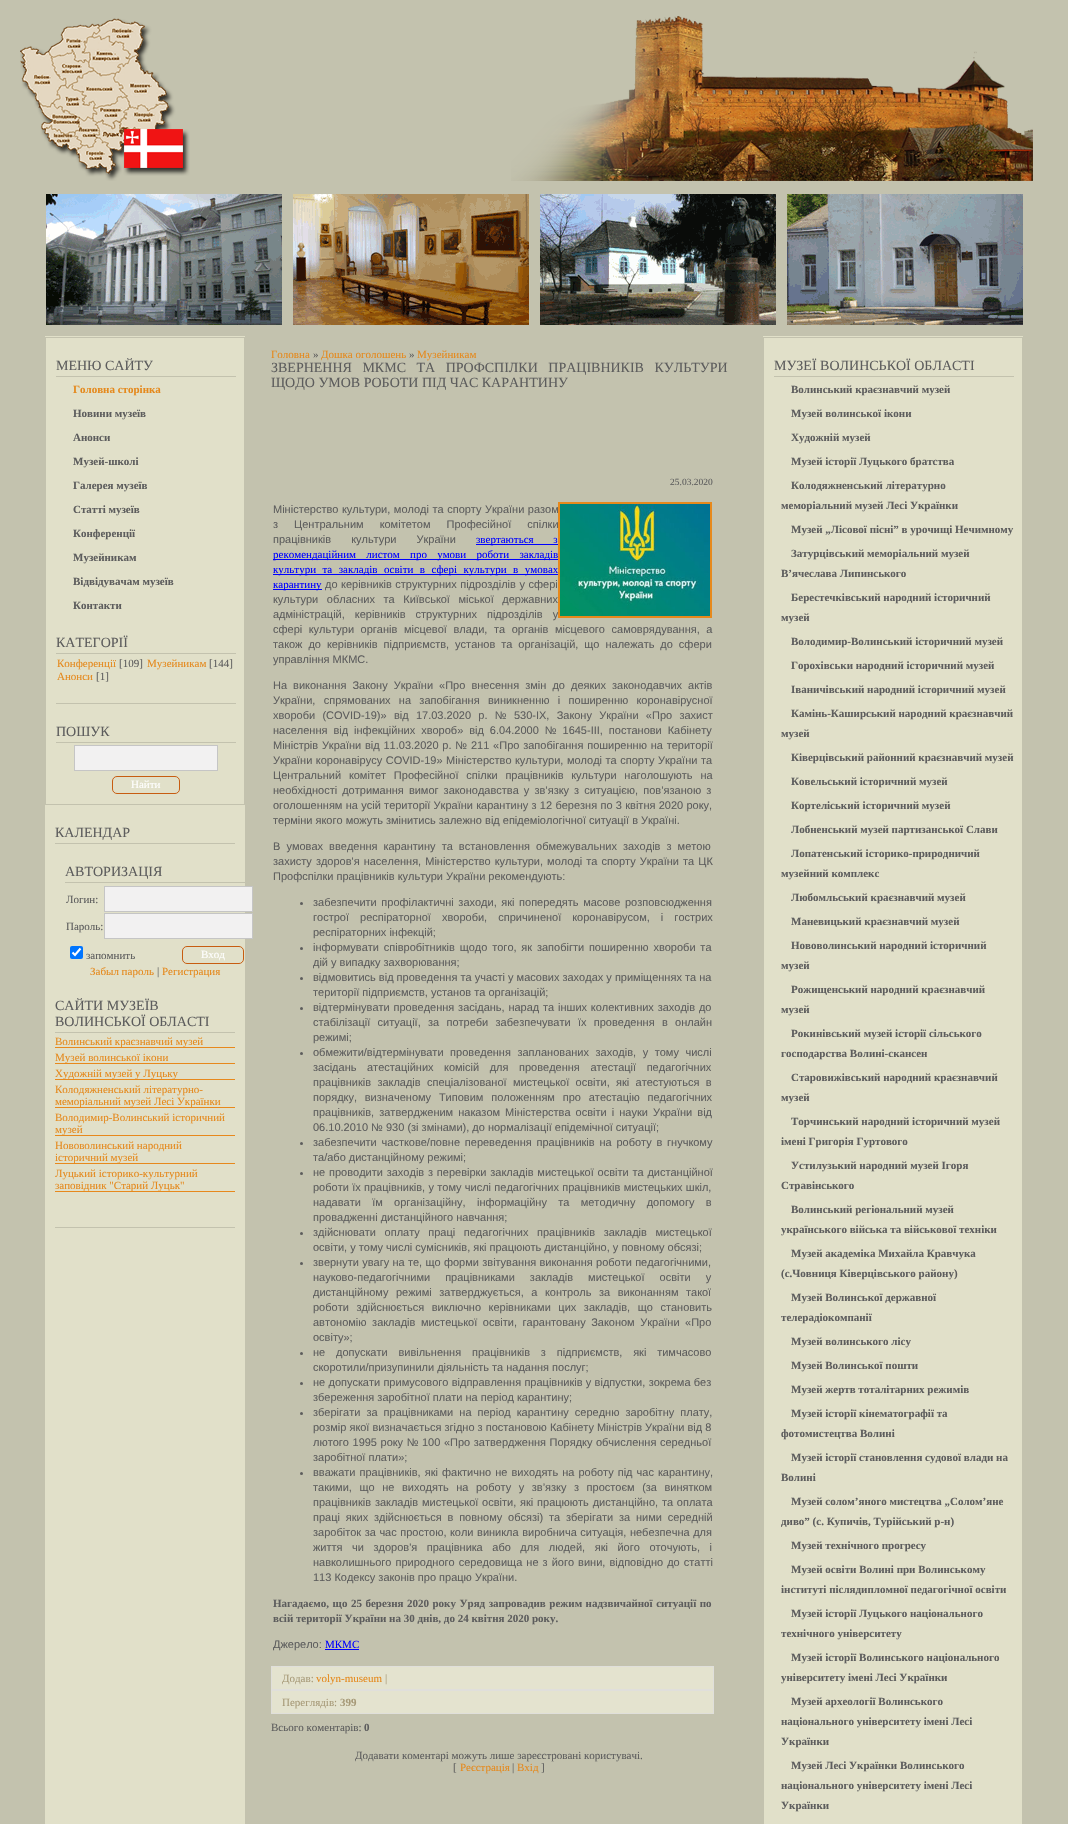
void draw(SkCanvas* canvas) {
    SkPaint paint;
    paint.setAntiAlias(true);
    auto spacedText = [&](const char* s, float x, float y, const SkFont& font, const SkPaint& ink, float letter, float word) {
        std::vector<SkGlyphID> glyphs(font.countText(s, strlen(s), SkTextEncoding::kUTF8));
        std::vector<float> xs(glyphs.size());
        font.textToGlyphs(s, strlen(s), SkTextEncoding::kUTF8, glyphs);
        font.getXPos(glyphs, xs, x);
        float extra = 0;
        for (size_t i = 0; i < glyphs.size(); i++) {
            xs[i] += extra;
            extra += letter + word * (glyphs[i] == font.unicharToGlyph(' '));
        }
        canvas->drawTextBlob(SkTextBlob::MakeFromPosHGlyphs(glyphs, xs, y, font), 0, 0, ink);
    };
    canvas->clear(0xFFC3C2AE);
    canvas->drawImageRect(SkImages::DeferredFromEncodedData(SkData::MakeFromFileName("img1.png")), SkRect::MakeXYWH(20, 18, 170, 163), SkSamplingOptions());
    canvas->drawImageRect(SkImages::DeferredFromEncodedData(SkData::MakeFromFileName("img2.png")), SkRect::MakeXYWH(511, 16, 522, 165), SkSamplingOptions());
    canvas->drawImageRect(SkImages::DeferredFromEncodedData(SkData::MakeFromFileName("img3.png")), SkRect::MakeXYWH(46, 194, 236, 131), SkSamplingOptions());
    canvas->drawImageRect(SkImages::DeferredFromEncodedData(SkData::MakeFromFileName("img4.png")), SkRect::MakeXYWH(293, 194, 236, 131), SkSamplingOptions());
    canvas->drawImageRect(SkImages::DeferredFromEncodedData(SkData::MakeFromFileName("img5.png")), SkRect::MakeXYWH(540, 194, 236, 131), SkSamplingOptions());
    canvas->drawImageRect(SkImages::DeferredFromEncodedData(SkData::MakeFromFileName("img6.png")), SkRect::MakeXYWH(787, 194, 236, 131), SkSamplingOptions());
    paint.setColor(0xFFE1E0C9);
    canvas->drawRect(SkRect::MakeXYWH(45, 336, 200, 1488), paint);
    paint.setStyle(SkPaint::kStroke_Style);
    paint.setStrokeWidth(1);
    paint.setColor(0xFFC3C2AE);
    canvas->drawRect(SkRect::MakeXYWH(45.5f, 337.5f, 199, 467), paint);
    SkFont font1(fontMgr->matchFamilyStyle("Liberation Serif", SkFontStyle::Normal()), 14);
    font1.setSubpixel(true);
    paint.setStyle(SkPaint::kFill_Style);
    paint.setColor(0xFF5D5D5D);
    canvas->drawString("МЕНЮ САЙТУ", 56, 370, font1, paint);
    paint.setColor(0xFFC3C2AE);
    canvas->drawRect(SkRect::MakeXYWH(56, 376, 180, 1), paint);
    SkFont font2(fontMgr->matchFamilyStyle("Liberation Serif", SkFontStyle::Bold()), 11);
    font2.setSubpixel(true);
    paint.setColor(0xFFE5891C);
    canvas->drawString("Головна сторінка", 73, 393, font2, paint);
    paint.setColor(0xFF5D5D5D);
    canvas->drawString("Новини музеїв", 73, 417, font2, paint);
    canvas->drawString("Анонси", 73, 441, font2, paint);
    canvas->drawString("Музей-школі", 73, 465, font2, paint);
    canvas->drawString("Галерея музеїв", 73, 489, font2, paint);
    canvas->drawString("Статті музеїв", 73, 513, font2, paint);
    canvas->drawString("Конференції", 73, 537, font2, paint);
    canvas->drawString("Музейникам", 73, 561, font2, paint);
    canvas->drawString("Відвідувачам музеїв", 73, 585, font2, paint);
    canvas->drawString("Контакти", 73, 609, font2, paint);
    canvas->drawString("КАТЕГОРІЇ", 56, 647, font1, paint);
    paint.setColor(0xFFC3C2AE);
    canvas->drawRect(SkRect::MakeXYWH(56, 653, 180, 1), paint);
    SkFont font3(fontMgr->matchFamilyStyle("Liberation Serif", SkFontStyle::Normal()), 11);
    font3.setSubpixel(true);
    paint.setColor(0xFFE5891C);
    canvas->drawString("Конференції", 57, 667, font3, paint);
    paint.setColor(0xFF5D5D5D);
    canvas->drawString("[109]", 119, 667, font3, paint);
    paint.setColor(0xFFE5891C);
    canvas->drawString("Музейникам", 147, 667, font3, paint);
    paint.setColor(0xFF5D5D5D);
    canvas->drawString("[144]", 209, 667, font3, paint);
    paint.setColor(0xFFE5891C);
    canvas->drawString("Анонси", 57, 680, font3, paint);
    paint.setColor(0xFF5D5D5D);
    canvas->drawString("[1]", 96, 680, font3, paint);
    paint.setColor(0xFFC3C2AE);
    canvas->drawRect(SkRect::MakeXYWH(56, 703, 180, 1), paint);
    paint.setColor(0xFF5D5D5D);
    canvas->drawString("ПОШУК", 56, 736, font1, paint);
    paint.setColor(0xFFC3C2AE);
    canvas->drawRect(SkRect::MakeXYWH(56, 742, 180, 1), paint);
    paint.setColor(0xFFF2F1F1);
    canvas->drawRect(SkRect::MakeXYWH(74.5f, 745.5f, 143, 25), paint);
    paint.setStyle(SkPaint::kStroke_Style);
    paint.setColor(0xFFC5C5C5);
    canvas->drawRect(SkRect::MakeXYWH(74.5f, 745.5f, 143, 25), paint);
    paint.setColor(0xFFC75D11);
    canvas->drawRoundRect(SkRect::MakeXYWH(112.5f, 776.5f, 67, 17), 4.5f, 4.5f, paint);
    paint.setStyle(SkPaint::kFill_Style);
    paint.setColor(0xFFFFFFFF);
    canvas->drawString("Найти", 131, 788, font3, paint);
    paint.setColor(0xFF5D5D5D);
    canvas->drawString("КАЛЕНДАР", 55, 837, font1, paint);
    paint.setColor(0xFFC3C2AE);
    canvas->drawRect(SkRect::MakeXYWH(55, 843, 180, 1), paint);
    paint.setColor(0xFF5D5D5D);
    canvas->drawString("АВТОРИЗАЦІЯ", 65, 876, font1, paint);
    paint.setColor(0xFFC3C2AE);
    canvas->drawRect(SkRect::MakeXYWH(65, 882, 180, 1), paint);
    paint.setColor(0xFF5D5D5D);
    canvas->drawString("Логин:", 66, 903, font3, paint);
    paint.setColor(0xFFF2F1F1);
    canvas->drawRect(SkRect::MakeXYWH(104.5f, 886.5f, 148, 25), paint);
    paint.setStyle(SkPaint::kStroke_Style);
    paint.setColor(0xFFC5C5C5);
    canvas->drawRect(SkRect::MakeXYWH(104.5f, 886.5f, 148, 25), paint);
    paint.setStyle(SkPaint::kFill_Style);
    paint.setColor(0xFF5D5D5D);
    canvas->drawString("Пароль:", 66, 930, font3, paint);
    paint.setColor(0xFFF2F1F1);
    canvas->drawRect(SkRect::MakeXYWH(104.5f, 913.5f, 148, 25), paint);
    paint.setStyle(SkPaint::kStroke_Style);
    paint.setColor(0xFFC5C5C5);
    canvas->drawRect(SkRect::MakeXYWH(104.5f, 913.5f, 148, 25), paint);
    paint.setStyle(SkPaint::kFill_Style);
    paint.setColor(0xFF0075FF);
    canvas->drawRoundRect(SkRect::MakeXYWH(70, 946, 13, 13), 2, 2, paint);
    paint.setStyle(SkPaint::kStroke_Style);
    paint.setStrokeWidth(2.1f);
    paint.setColor(0xFFFFFFFF);
    canvas->drawPath(SkPathBuilder().moveTo(72.5f, 952.5f).lineTo(75, 955).lineTo(80.5f, 948.5f).detach(), paint);
    paint.setStyle(SkPaint::kFill_Style);
    paint.setColor(0xFF5D5D5D);
    canvas->drawString("запомнить", 86, 959, font3, paint);
    paint.setStyle(SkPaint::kStroke_Style);
    paint.setStrokeWidth(1);
    paint.setColor(0xFFC75D11);
    canvas->drawRoundRect(SkRect::MakeXYWH(182.5f, 946.5f, 61, 17), 4.5f, 4.5f, paint);
    paint.setStyle(SkPaint::kFill_Style);
    paint.setColor(0xFFFFFFFF);
    canvas->drawString("Вход", 201, 958, font3, paint);
    paint.setColor(0xFFE5891C);
    canvas->drawString("Забыл пароль", 90, 975, font3, paint);
    paint.setColor(0xFF5D5D5D);
    canvas->drawString("|", 157, 975, font3, paint);
    paint.setColor(0xFFE5891C);
    canvas->drawString("Регистрация", 162, 975, font3, paint);
    paint.setColor(0xFF5D5D5D);
    canvas->drawString("САЙТИ МУЗЕЇВ", 55, 1010, font1, paint);
    canvas->drawString("ВОЛИНСЬКОЇ ОБЛАСТІ", 55, 1026, font1, paint);
    paint.setColor(0xFFC3C2AE);
    canvas->drawRect(SkRect::MakeXYWH(55, 1032, 180, 1), paint);
    paint.setColor(0xFFE7891C);
    canvas->drawRect(SkRect::MakeXYWH(55, 1047, 180, 1), paint);
    paint.setColor(0xFFE5891C);
    canvas->drawString("Волинський краєзнавчий музей", 55, 1045, font3, paint);
    paint.setColor(0xFFE7891C);
    canvas->drawRect(SkRect::MakeXYWH(55, 1063, 180, 1), paint);
    paint.setColor(0xFFE5891C);
    canvas->drawString("Музей волинської ікони", 55, 1061, font3, paint);
    paint.setColor(0xFFE7891C);
    canvas->drawRect(SkRect::MakeXYWH(55, 1079, 180, 1), paint);
    paint.setColor(0xFFE5891C);
    canvas->drawString("Художній музей у Луцьку", 55, 1077, font3, paint);
    canvas->drawString("Колодяжненський літературно-", 55, 1093, font3, paint);
    paint.setColor(0xFFE7891C);
    canvas->drawRect(SkRect::MakeXYWH(55, 1107, 180, 1), paint);
    paint.setColor(0xFFE5891C);
    canvas->drawString("меморіальний музей Лесі Українки", 55, 1105, font3, paint);
    canvas->drawString("Володимир-Волинський історичний", 55, 1121, font3, paint);
    paint.setColor(0xFFE7891C);
    canvas->drawRect(SkRect::MakeXYWH(55, 1135, 180, 1), paint);
    paint.setColor(0xFFE5891C);
    canvas->drawString("музей", 55, 1133, font3, paint);
    canvas->drawString("Нововолинський народний", 55, 1149, font3, paint);
    paint.setColor(0xFFE7891C);
    canvas->drawRect(SkRect::MakeXYWH(55, 1163, 180, 1), paint);
    paint.setColor(0xFFE5891C);
    canvas->drawString("історичний музей", 55, 1161, font3, paint);
    canvas->drawString("Луцький історико-культурний", 55, 1177, font3, paint);
    paint.setColor(0xFFE7891C);
    canvas->drawRect(SkRect::MakeXYWH(55, 1191, 180, 1), paint);
    paint.setColor(0xFFE5891C);
    canvas->drawString("заповідник \"Старий Луцьк\"", 55, 1189, font3, paint);
    paint.setColor(0xFFC3C2AE);
    canvas->drawRect(SkRect::MakeXYWH(55, 1227, 180, 1), paint);
    paint.setColor(0xFFE5891C);
    canvas->drawString("Головна", 271, 358, font3, paint);
    paint.setColor(0xFF5D5D5D);
    canvas->drawString("»", 313, 358, font3, paint);
    paint.setColor(0xFFE5891C);
    canvas->drawString("Дошка оголошень", 321, 358, font3, paint);
    paint.setColor(0xFF5D5D5D);
    canvas->drawString("»", 409, 358, font3, paint);
    paint.setColor(0xFFE5891C);
    canvas->drawString("Музейникам", 417, 358, font3, paint);
    paint.setColor(0xFF5D5D5D);
    spacedText("ЗВЕРНЕННЯ МКМС ТА ПРОФСПІЛКИ ПРАЦІВНИКІВ КУЛЬТУРИ", 271, 372, font1, paint, 0, 7);
    canvas->drawString("ЩОДО УМОВ РОБОТИ ПІД ЧАС КАРАНТИНУ", 271, 387, font1, paint);
    SkFont font4(fontMgr->matchFamilyStyle("Liberation Serif", SkFontStyle::Normal()), 9.5f);
    font4.setSubpixel(true);
    canvas->drawString("25.03.2020", 670, 485, font4, paint);
    SkFont font5(fontMgr->matchFamilyStyle("Liberation Sans", SkFontStyle::Normal()), 11);
    font5.setSubpixel(true);
    spacedText("Міністерство культури, молоді та спорту України разом", 273, 513, font5, paint, 0, 0.5f);
    paint.setStyle(SkPaint::kStroke_Style);
    paint.setStrokeWidth(2);
    paint.setColor(0xFFE7891C);
    canvas->drawRect(SkRect::MakeXYWH(559, 503, 152, 114), paint);
    canvas->drawImageRect(SkImages::DeferredFromEncodedData(SkData::MakeFromFileName("img7.png")), SkRect::MakeXYWH(560, 504, 150, 112), SkSamplingOptions());
    paint.setStyle(SkPaint::kFill_Style);
    paint.setColor(0xFF5D5D5D);
    spacedText("з Центральним комітетом Професійної спілки", 273, 528, font5, paint, 0, 13);
    spacedText("працівників культури України", 273, 543, font5, paint, 0, 17);
    paint.setColor(0xFF0000FF);
    canvas->drawRect(SkRect::MakeXYWH(476, 544, 82, 1), paint);
    spacedText("звертаються з", 476, 543, font3, paint, 0, 17);
    canvas->drawRect(SkRect::MakeXYWH(273, 559, 285, 1), paint);
    spacedText("рекомендаційним листом про умови роботи закладів", 273, 558, font3, paint, 0, 7.5f);
    canvas->drawRect(SkRect::MakeXYWH(273, 574, 285, 1), paint);
    spacedText("культури та закладів освіти в сфері культури в умовах", 273, 573, font3, paint, 0, 3.75f);
    canvas->drawRect(SkRect::MakeXYWH(273, 589, 49, 1), paint);
    canvas->drawString("карантину", 273, 588, font3, paint);
    paint.setColor(0xFF5D5D5D);
    spacedText("до керівників структурних підрозділів у сфері", 325, 588, font5, paint, 0, 0.5f);
    spacedText("культури обласних та Київської міської державних", 273, 603, font5, paint, 0, 5.5f);
    spacedText("адміністрацій, керівників структурних підрозділів у", 273, 618, font5, paint, 0, 7);
    spacedText("сфері культури органів місцевої влади, та органів місцевого самоврядування, а", 273, 633, font5, paint, 0, 3.5f);
    spacedText("також до керівників підприємств, установ та організацій, що належать до сфери", 273, 648, font5, paint, 0, 2.9f);
    canvas->drawString("управління МКМС.", 273, 663, font5, paint);
    spacedText("На виконання Закону України «Про внесення змін до деяких законодавчих актів", 273, 689, font5, paint, 0, 3);
    spacedText("України, спрямованих на запобігання виникненню і поширенню коронавірусної", 273, 704, font5, paint, 0, 5.25f);
    spacedText("хвороби (COVID-19)» від 17.03.2020 р. № 530-ІХ, Закону України «Про захист", 273, 719, font5, paint, 0, 4.25f);
    spacedText("населення від інфекційних хвороб» від 6.04.2000 № 1645-ІІІ, постанови Кабінету", 273, 734, font5, paint, 0, 2.9f);
    spacedText("Міністрів України від 11.03.2020 р. № 211 «Про запобігання поширенню на території", 273, 749, font5, paint, 0, 0.75f);
    spacedText("України коронавірусу COVID-19» Міністерство культури, молоді та спорту України та", 273, 764, font5, paint, 0, 0.5f);
    spacedText("Центральний комітет Професійної спілки працівників культури наголошують на", 273, 779, font5, paint, 0, 4.75f);
    spacedText("необхідності дотримання вимог законодавства у зв’язку з ситуацією, пов’язаною з", 273, 794, font5, paint, 0, 2);
    spacedText("оголошенням на усій території України карантину з 12 березня по 3 квітня 2020 року,", 273, 809, font5, paint, 0, 0.25f);
    canvas->drawString("терміни якого можуть змінитись залежно від епідеміологічної ситуації в Україні.", 273, 824, font5, paint);
    spacedText("В умовах введення карантину та встановлення обмежувальних заходів з метою", 273, 850, font5, paint, 0, 3);
    spacedText("захисту здоров'я населення, Міністерство культури, молоді та спорту України та ЦК", 273, 865, font5, paint, 0, 1);
    canvas->drawString("Профспілки працівників культури України рекомендують:", 273, 880, font5, paint);
    canvas->drawCircle(301.5f, 903.5f, 1.5f, paint);
    spacedText("забезпечити профілактичні заходи, які попередять масове розповсюдження", 313, 906, font5, paint, 0, 1.5f);
    spacedText("гострої респіраторної хвороби, спричиненої коронавірусом, і гострих", 313, 921, font5, paint, 0, 8);
    canvas->drawString("респіраторних інфекцій;", 313, 936, font5, paint);
    canvas->drawCircle(301.5f, 948.5f, 1.5f, paint);
    spacedText("інформувати співробітників щодо того, як запобігти поширенню хвороби та", 313, 951, font5, paint, 0, 1.75f);
    canvas->drawString("дій у випадку захворювання;", 313, 966, font5, paint);
    canvas->drawCircle(301.5f, 978.5f, 1.5f, paint);
    canvas->drawString("відмовитись від проведення та участі у масових заходах у приміщеннях та на", 313, 981, font5, paint);
    canvas->drawString("території підприємств, установ та організацій;", 313, 996, font5, paint);
    canvas->drawCircle(301.5f, 1008.5f, 1.5f, paint);
    spacedText("відтермінувати проведення засідань, нарад та інших колективних заходів до", 313, 1011, font5, paint, 0, 0.75f);
    spacedText("стабілізації ситуації, за потреби забезпечувати їх проведення в онлайн", 313, 1026, font5, paint, 0, 4.25f);
    canvas->drawString("режимі;", 313, 1041, font5, paint);
    canvas->drawCircle(301.5f, 1053.5f, 1.5f, paint);
    spacedText("обмежити/відтермінувати проведення запланованих заходів, у тому числі", 313, 1056, font5, paint, 0, 3.5f);
    spacedText("засідань атестаційних комісій для проведення атестації педагогічних", 313, 1071, font5, paint, 0, 7.5f);
    spacedText("працівників закладів спеціалізованої мистецької освіти, які атестуються в", 313, 1086, font5, paint, 0, 3.25f);
    spacedText("порядку, визначеному Типовим положенням про атестацію педагогічних", 313, 1101, font5, paint, 0, 4.75f);
    spacedText("працівників, затвердженим наказом Міністерства освіти і науки України від", 313, 1116, font5, paint, 0, 2);
    canvas->drawString("06.10.2010 № 930 (зі змінами), до нормалізації епідемічної ситуації;", 313, 1131, font5, paint);
    canvas->drawCircle(301.5f, 1143.5f, 1.5f, paint);
    spacedText("забезпечити часткове/повне переведення працівників на роботу в гнучкому", 313, 1146, font5, paint, 0, 1.75f);
    canvas->drawString("та/або дистанційному режимі;", 313, 1161, font5, paint);
    canvas->drawCircle(301.5f, 1173.5f, 1.5f, paint);
    spacedText("не проводити заходів з перевірки закладів мистецької освіти та дистанційної", 313, 1176, font5, paint, 0, 0.75f);
    spacedText("роботи їх працівників, у тому числі педагогічних працівників мистецьких шкіл,", 313, 1191, font5, paint, 0, 0.25f);
    spacedText("надавати їм організаційну, інформаційну та методичну допомогу в", 313, 1206, font5, paint, 0, 8.25f);
    canvas->drawString("провадженні дистанційного навчання;", 313, 1221, font5, paint);
    canvas->drawCircle(301.5f, 1233.5f, 1.5f, paint);
    spacedText("здійснювати оплату праці педагогічних працівників закладів мистецької", 313, 1236, font5, paint, 0, 5.5f);
    canvas->drawString("освіти, у тому числі сумісників, які працюють дистанційно, у повному обсязі;", 313, 1251, font5, paint);
    canvas->drawCircle(301.5f, 1263.5f, 1.5f, paint);
    spacedText("звернути увагу на те, що форми звітування виконання роботи педагогічними,", 313, 1266, font5, paint, 0, 0.25f);
    spacedText("науково-педагогічними працівниками закладів мистецької освіти у", 313, 1281, font5, paint, 0, 12);
    spacedText("дистанційному режимі затверджується, а контроль за виконанням такої", 313, 1296, font5, paint, 0, 4.5f);
    spacedText("роботи здійснюється виключно керівниками цих закладів, що становить", 313, 1311, font5, paint, 0, 4.5f);
    spacedText("автономію закладів мистецької освіти, гарантовану Законом України «Про", 313, 1326, font5, paint, 0, 2.5f);
    canvas->drawString("освіту»;", 313, 1341, font5, paint);
    canvas->drawCircle(301.5f, 1353.5f, 1.5f, paint);
    spacedText("не допускати вивільнення працівників з підприємств, які тимчасово", 313, 1356, font5, paint, 0, 7.75f);
    canvas->drawString("скоротили/призупинили діяльність та надання послуг;", 313, 1371, font5, paint);
    canvas->drawCircle(301.5f, 1383.5f, 1.5f, paint);
    spacedText("не допускати примусового відправлення працівників у відпустки, зокрема без", 313, 1386, font5, paint, 0, 0.25f);
    canvas->drawString("збереження заробітної плати на період карантину;", 313, 1401, font5, paint);
    canvas->drawCircle(301.5f, 1413.5f, 1.5f, paint);
    spacedText("зберігати за працівниками на період карантину середню заробітну плату,", 313, 1416, font5, paint, 0, 3);
    canvas->drawString("розмір якої визначається згідно з постановою Кабінету Міністрів України від 8", 313, 1431, font5, paint);
    spacedText("лютого 1995 року № 100 «Про затвердження Порядку обчислення середньої", 313, 1446, font5, paint, 0, 0.5f);
    canvas->drawString("заробітної плати»;", 313, 1461, font5, paint);
    canvas->drawCircle(301.5f, 1473.5f, 1.5f, paint);
    spacedText("вважати працівників, які фактично не виходять на роботу під час карантину,", 313, 1476, font5, paint, 0, 1);
    spacedText("такими, що не виходять на роботу у зв’язку з простоєм (за винятком", 313, 1491, font5, paint, 0, 4.5f);
    spacedText("працівників закладів мистецької освіти, які працюють дистанційно, та оплата", 313, 1506, font5, paint, 0, 0.75f);
    spacedText("праці яких здійснюється в повному обсязі) та зберігати за ними середній", 313, 1521, font5, paint, 0, 2.75f);
    spacedText("заробіток за час простою, коли виникла виробнича ситуація, небезпечна для", 313, 1536, font5, paint, 0, 0.5f);
    spacedText("життя чи здоров'я працівника або для людей, які його оточують, і", 313, 1551, font5, paint, 0, 6.5f);
    spacedText("навколишнього природного середовища не з його вини, відповідно до статті", 313, 1566, font5, paint, 0, 1);
    canvas->drawString("113 Кодексу законів про працю України.", 313, 1581, font5, paint);
    spacedText("Нагадаємо, що 25 березня 2020 року Уряд запровадив режим надзвичайної ситуації по", 273, 1607, font2, paint, 0, 0.75f);
    canvas->drawString("всій території України на 30 днів, до 24 квітня 2020 року.", 273, 1622, font2, paint);
    canvas->drawString("Джерело:", 273, 1648, font5, paint);
    paint.setColor(0xFF0000FF);
    canvas->drawString("МКМС", 325, 1648, font3, paint);
    canvas->drawRect(SkRect::MakeXYWH(325, 1649, 34, 1), paint);
    paint.setColor(0xFFE4E3CF);
    canvas->drawRect(SkRect::MakeXYWH(271.5f, 1666.5f, 442, 23), paint);
    paint.setStyle(SkPaint::kStroke_Style);
    paint.setStrokeWidth(1);
    paint.setColor(0xFFE0DFDB);
    canvas->drawRect(SkRect::MakeXYWH(271.5f, 1666.5f, 442, 23), paint);
    paint.setStyle(SkPaint::kFill_Style);
    paint.setColor(0xFFA79A78);
    canvas->drawString("Додав:", 282, 1682, font3, paint);
    paint.setColor(0xFFE5891C);
    canvas->drawString("volyn-museum", 316, 1682, font3, paint);
    paint.setColor(0xFFA79A78);
    canvas->drawString("|", 385, 1682, font3, paint);
    paint.setColor(0xFFE4E3CF);
    canvas->drawRect(SkRect::MakeXYWH(271.5f, 1690.5f, 442, 23), paint);
    paint.setStyle(SkPaint::kStroke_Style);
    paint.setColor(0xFFE0DFDB);
    canvas->drawRect(SkRect::MakeXYWH(271.5f, 1690.5f, 442, 23), paint);
    paint.setStyle(SkPaint::kFill_Style);
    paint.setColor(0xFFA79A78);
    canvas->drawString("Переглядів:", 282, 1706, font3, paint);
    canvas->drawString("399", 340, 1706, font2, paint);
    paint.setColor(0xFF5D5D5D);
    canvas->drawString("Всього коментарів:", 271, 1731, font3, paint);
    canvas->drawString("0", 364, 1731, font2, paint);
    canvas->drawString("Додавати коментарі можуть лише зареєстровані користувачі.", 355, 1759, font3, paint);
    canvas->drawString("[", 453, 1771, font3, paint);
    paint.setColor(0xFFE5891C);
    canvas->drawString("Реєстрація", 460, 1771, font3, paint);
    paint.setColor(0xFF5D5D5D);
    canvas->drawString("|", 512, 1771, font3, paint);
    paint.setColor(0xFFE5891C);
    canvas->drawString("Вхід", 517, 1771, font3, paint);
    paint.setColor(0xFF5D5D5D);
    canvas->drawString("]", 541, 1771, font3, paint);
    paint.setColor(0xFFE1E0C9);
    canvas->drawRect(SkRect::MakeXYWH(763, 336, 260, 1488), paint);
    paint.setStyle(SkPaint::kStroke_Style);
    paint.setColor(0xFFC3C2AE);
    canvas->drawRect(SkRect::MakeXYWH(763.5f, 337.5f, 259, 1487), paint);
    paint.setStyle(SkPaint::kFill_Style);
    paint.setColor(0xFF5D5D5D);
    canvas->drawString("МУЗЕЇ ВОЛИНСЬКОЇ ОБЛАСТІ", 774, 370, font1, paint);
    paint.setColor(0xFFC3C2AE);
    canvas->drawRect(SkRect::MakeXYWH(774, 376, 240, 1), paint);
    paint.setColor(0xFF5D5D5D);
    canvas->drawString("Волинський краєзнавчий музей", 791, 393, font2, paint);
    canvas->drawString("Музей волинської ікони", 791, 417, font2, paint);
    canvas->drawString("Художній музей", 791, 441, font2, paint);
    canvas->drawString("Музей історії Луцького братства", 791, 465, font2, paint);
    canvas->drawString("Колодяжненський літературно", 791, 489, font2, paint);
    canvas->drawString("меморіальний музей Лесі Українки", 781, 509, font2, paint);
    canvas->drawString("Музей „Лісової пісні” в урочищі Нечимному", 791, 533, font2, paint);
    canvas->drawString("Затурцівський меморіальний музей", 791, 557, font2, paint);
    canvas->drawString("В’ячеслава Липинського", 781, 577, font2, paint);
    canvas->drawString("Берестечківський народний історичний", 791, 601, font2, paint);
    canvas->drawString("музей", 781, 621, font2, paint);
    canvas->drawString("Володимир-Волинський історичний музей", 791, 645, font2, paint);
    canvas->drawString("Горохівськи народний історичний музей", 791, 669, font2, paint);
    canvas->drawString("Іваничівський народний історичний музей", 791, 693, font2, paint);
    canvas->drawString("Камінь-Каширський народний краєзнавчий", 791, 717, font2, paint);
    canvas->drawString("музей", 781, 737, font2, paint);
    canvas->drawString("Ківерцівський районний краєзнавчий музей", 791, 761, font2, paint);
    canvas->drawString("Ковельський історичний музей", 791, 785, font2, paint);
    canvas->drawString("Кортеліський історичний музей", 791, 809, font2, paint);
    canvas->drawString("Лобненський музей партизанської Слави", 791, 833, font2, paint);
    canvas->drawString("Лопатенський історико-природничий", 791, 857, font2, paint);
    canvas->drawString("музейний комплекс", 781, 877, font2, paint);
    canvas->drawString("Любомльський краєзнавчий музей", 791, 901, font2, paint);
    canvas->drawString("Маневицький краєзнавчий музей", 791, 925, font2, paint);
    canvas->drawString("Нововолинський народний історичний", 791, 949, font2, paint);
    canvas->drawString("музей", 781, 969, font2, paint);
    canvas->drawString("Рожищенський народний краєзнавчий", 791, 993, font2, paint);
    canvas->drawString("музей", 781, 1013, font2, paint);
    canvas->drawString("Рокинівський музей історії сільського", 791, 1037, font2, paint);
    canvas->drawString("господарства Волині-скансен", 781, 1057, font2, paint);
    canvas->drawString("Старовижівський народний краєзнавчий", 791, 1081, font2, paint);
    canvas->drawString("музей", 781, 1101, font2, paint);
    canvas->drawString("Торчинський народний історичний музей", 791, 1125, font2, paint);
    canvas->drawString("імені Григорія Гуртового", 781, 1145, font2, paint);
    canvas->drawString("Устилузький народний музей Ігоря", 791, 1169, font2, paint);
    canvas->drawString("Стравінського", 781, 1189, font2, paint);
    canvas->drawString("Волинський регіональний музей", 791, 1213, font2, paint);
    canvas->drawString("українського війська та військової техніки", 781, 1233, font2, paint);
    canvas->drawString("Музей академіка Михайла Кравчука", 791, 1257, font2, paint);
    canvas->drawString("(с.Човниця Ківерцівського району)", 781, 1277, font2, paint);
    canvas->drawString("Музей Волинської державної", 791, 1301, font2, paint);
    canvas->drawString("телерадіокомпанії", 781, 1321, font2, paint);
    canvas->drawString("Музей волинського лісу", 791, 1345, font2, paint);
    canvas->drawString("Музей Волинської пошти", 791, 1369, font2, paint);
    canvas->drawString("Музей жертв тоталітарних режимів", 791, 1393, font2, paint);
    canvas->drawString("Музей історії кінематографії та", 791, 1417, font2, paint);
    canvas->drawString("фотомистецтва Волині", 781, 1437, font2, paint);
    canvas->drawString("Музей історії становлення судової влади на", 791, 1461, font2, paint);
    canvas->drawString("Волині", 781, 1481, font2, paint);
    canvas->drawString("Музей солом’яного мистецтва „Солом’яне", 791, 1505, font2, paint);
    canvas->drawString("диво” (с. Купичів, Турійський р-н)", 781, 1525, font2, paint);
    canvas->drawString("Музей технічного прогресу", 791, 1549, font2, paint);
    canvas->drawString("Музей освіти Волині при Волинському", 791, 1573, font2, paint);
    canvas->drawString("інституті післядипломної педагогічної освіти", 781, 1593, font2, paint);
    canvas->drawString("Музей історії Луцького національного", 791, 1617, font2, paint);
    canvas->drawString("технічного університету", 781, 1637, font2, paint);
    canvas->drawString("Музей історії Волинського національного", 791, 1661, font2, paint);
    canvas->drawString("університету імені Лесі Українки", 781, 1681, font2, paint);
    canvas->drawString("Музей археології Волинського", 791, 1705, font2, paint);
    canvas->drawString("національного університету імені Лесі", 781, 1725, font2, paint);
    canvas->drawString("Українки", 781, 1745, font2, paint);
    canvas->drawString("Музей Лесі Українки Волинського", 791, 1769, font2, paint);
    canvas->drawString("національного університету імені Лесі", 781, 1789, font2, paint);
    canvas->drawString("Українки", 781, 1809, font2, paint);
}
